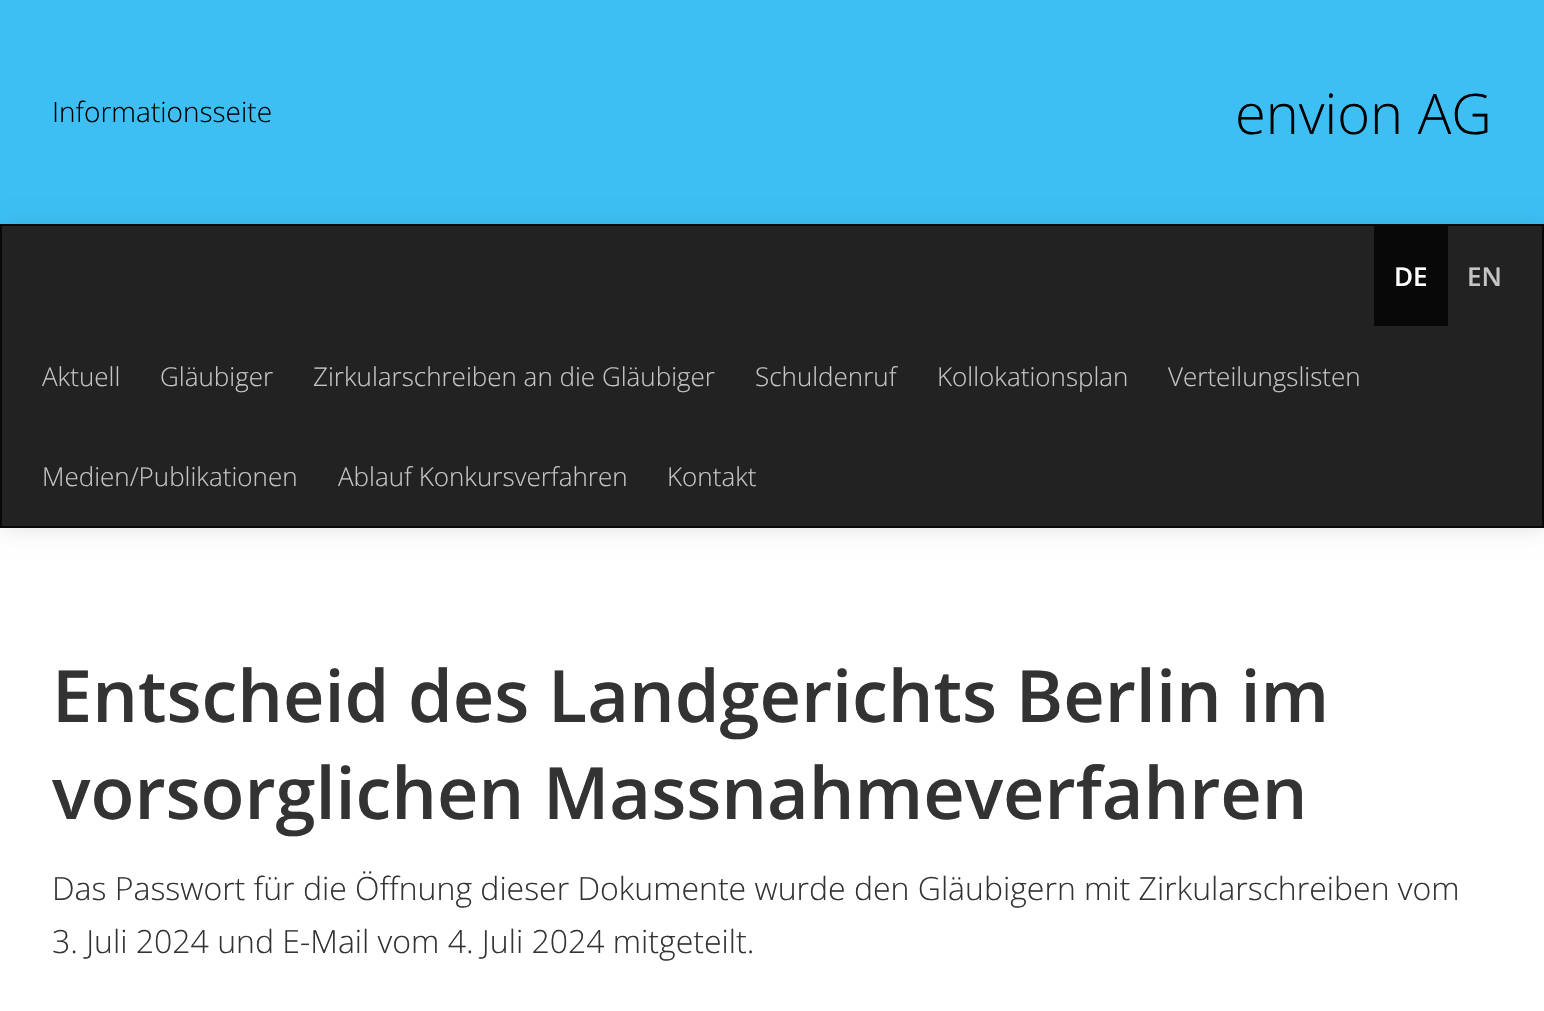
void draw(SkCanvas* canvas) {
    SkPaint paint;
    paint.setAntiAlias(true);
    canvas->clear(0xFFFFFFFF);
    paint.setColor(0xFF3DBFF4);
    canvas->drawRect(SkRect::MakeXYWH(0, 0, 1544, 224), paint);
    SkFont font1(fontMgr->matchFamilyStyle("Open Sans", SkFontStyle(300, SkFontStyle::kNormal_Width, SkFontStyle::kUpright_Slant)), 28);
    font1.setSubpixel(true);
    paint.setColor(0xFF000000);
    canvas->drawString("Informationsseite", 52, 122, font1, paint);
    SkFont font2(fontMgr->matchFamilyStyle("Open Sans", SkFontStyle(300, SkFontStyle::kNormal_Width, SkFontStyle::kUpright_Slant)), 56);
    font2.setSubpixel(true);
    canvas->drawString("envion AG", 1235, 134, font2, paint);
    paint.setColor(0x1A000000);
    paint.setMaskFilter(SkMaskFilter::MakeBlur(kNormal_SkBlurStyle, 10));
    canvas->drawRect(SkRect::MakeXYWH(2, 226, 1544, 304), paint);
    paint.setMaskFilter(nullptr);
    paint.setColor(0xFF222222);
    canvas->drawRect(SkRect::MakeXYWH(1, 225, 1542, 302), paint);
    paint.setStyle(SkPaint::kStroke_Style);
    paint.setStrokeWidth(2);
    paint.setColor(0xFF080808);
    canvas->drawRect(SkRect::MakeXYWH(1, 225, 1542, 302), paint);
    paint.setStyle(SkPaint::kFill_Style);
    canvas->drawRect(SkRect::MakeXYWH(1374, 226, 74, 100), paint);
    SkFont font3(fontMgr->matchFamilyStyle("Open Sans", SkFontStyle(600, SkFontStyle::kNormal_Width, SkFontStyle::kUpright_Slant)), 26);
    font3.setSubpixel(true);
    paint.setColor(0xFFFFFFFF);
    canvas->drawString("DE", 1394, 286, font3, paint);
    paint.setColor(0xFFC4C4C4);
    canvas->drawString("EN", 1467, 286, font3, paint);
    SkFont font4(fontMgr->matchFamilyStyle("Open Sans", SkFontStyle(300, SkFontStyle::kNormal_Width, SkFontStyle::kUpright_Slant)), 26);
    font4.setSubpixel(true);
    canvas->drawString("Aktuell", 42, 386, font4, paint);
    canvas->drawString("Gläubiger", 160, 386, font4, paint);
    canvas->drawString("Zirkularschreiben an die Gläubiger", 313, 386, font4, paint);
    canvas->drawString("Schuldenruf", 755, 386, font4, paint);
    canvas->drawString("Kollokationsplan", 937, 386, font4, paint);
    canvas->drawString("Verteilungslisten", 1168, 386, font4, paint);
    canvas->drawString("Medien/Publikationen", 42, 486, font4, paint);
    canvas->drawString("Ablauf Konkursverfahren", 338, 486, font4, paint);
    canvas->drawString("Kontakt", 667, 486, font4, paint);
    SkFont font5(fontMgr->matchFamilyStyle("Open Sans", SkFontStyle(600, SkFontStyle::kNormal_Width, SkFontStyle::kUpright_Slant)), 72);
    font5.setSubpixel(true);
    paint.setColor(0xFF333333);
    canvas->drawString("Entscheid des Landgerichts Berlin im", 52, 722, font5, paint);
    canvas->drawString("vorsorglichen Massnahmeverfahren", 52, 819, font5, paint);
    SkFont font6(fontMgr->matchFamilyStyle("Open Sans", SkFontStyle(300, SkFontStyle::kNormal_Width, SkFontStyle::kUpright_Slant)), 32);
    font6.setSubpixel(true);
    canvas->drawString("Das Passwort für die Öffnung dieser Dokumente wurde den Gläubigern mit Zirkularschreiben vom", 52, 900, font6, paint);
    canvas->drawString("3. Juli 2024 und E-Mail vom 4. Juli 2024 mitgeteilt.", 52, 953, font6, paint);
}
